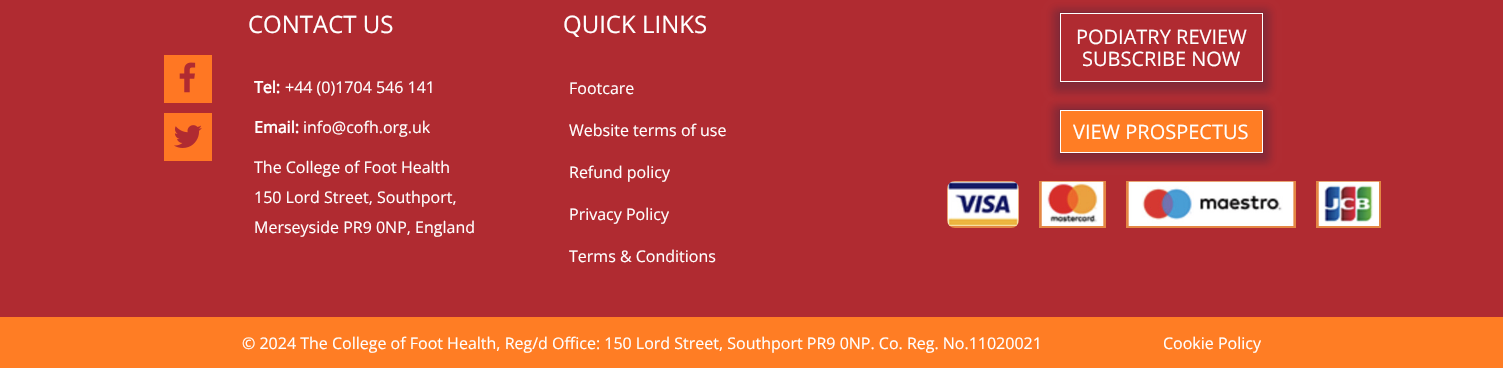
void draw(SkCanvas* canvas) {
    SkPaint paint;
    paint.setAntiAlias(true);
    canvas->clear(0xFFB02B31);
    paint.setColor(0xFFFF7723);
    canvas->drawRect(SkRect::MakeXYWH(164, 55, 48, 48), paint);
    canvas->drawImageRect(SkImages::DeferredFromEncodedData(SkData::MakeFromFileName("img1.png")), SkRect::MakeXYWH(179, 62, 17, 31), SkSamplingOptions());
    canvas->drawRect(SkRect::MakeXYWH(164, 113, 48, 48), paint);
    canvas->drawImageRect(SkImages::DeferredFromEncodedData(SkData::MakeFromFileName("img2.png")), SkRect::MakeXYWH(174, 125, 28, 23), SkSamplingOptions());
    SkFont font1(fontMgr->matchFamilyStyle("Open Sans", SkFontStyle::Normal()), 24);
    font1.setSubpixel(true);
    paint.setColor(0xFFFFFFFF);
    canvas->drawString("CONTACT US", 248, 33, font1, paint);
    SkFont font2(fontMgr->matchFamilyStyle("Open Sans", SkFontStyle::Bold()), 16);
    font2.setSubpixel(true);
    canvas->drawString("Tel:", 254, 93, font2, paint);
    SkFont font3(fontMgr->matchFamilyStyle("Open Sans", SkFontStyle::Normal()), 16);
    font3.setSubpixel(true);
    canvas->drawString("+44 (0)1704 546 141", 285, 93, font3, paint);
    canvas->drawString("Email:", 254, 133, font2, paint);
    canvas->drawString("info@cofh.org.uk", 303, 133, font3, paint);
    canvas->drawString("The College of Foot Health", 254, 173, font3, paint);
    canvas->drawString("150 Lord Street, Southport,", 254, 203, font3, paint);
    canvas->drawString("Merseyside PR9 0NP, England", 254, 233, font3, paint);
    canvas->drawString("QUICK LINKS", 563, 33, font1, paint);
    canvas->drawString("Footcare", 569, 94, font3, paint);
    canvas->drawString("Website terms of use", 569, 136, font3, paint);
    canvas->drawString("Refund policy", 569, 178, font3, paint);
    canvas->drawString("Privacy Policy", 569, 220, font3, paint);
    canvas->drawString("Terms & Conditions", 569, 262, font3, paint);
    paint.setStyle(SkPaint::kStroke_Style);
    paint.setStrokeWidth(1);
    paint.setColor(0xFFA32A32);
    canvas->drawRect(SkRect::MakeXYWH(1059.5f, 12.5f, 204, 70), paint);
    canvas->save();
    canvas->clipPath(SkPathBuilder(SkPathFillType::kEvenOdd).moveTo(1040, 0).lineTo(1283, 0).lineTo(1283, 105).lineTo(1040, 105).close().moveTo(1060, 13).lineTo(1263, 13).lineTo(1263, 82).lineTo(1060, 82).close().detach(), true);
    paint.setStyle(SkPaint::kFill_Style);
    paint.setColor(0x40091E42);
    paint.setMaskFilter(SkMaskFilter::MakeBlur(kNormal_SkBlurStyle, 4));
    canvas->drawRect(SkRect::MakeXYWH(1053, 9, 217, 83), paint);
    paint.setMaskFilter(nullptr);
    canvas->restore();
    paint.setStyle(SkPaint::kStroke_Style);
    paint.setColor(0xFFFFFFFF);
    canvas->drawRect(SkRect::MakeXYWH(1060.5f, 13.5f, 202, 68), paint);
    SkFont font4(fontMgr->matchFamilyStyle("Open Sans", SkFontStyle::Normal()), 20);
    font4.setSubpixel(true);
    paint.setStyle(SkPaint::kFill_Style);
    canvas->drawString("PODIATRY REVIEW", 1076, 44, font4, paint);
    canvas->drawString("SUBSCRIBE NOW", 1082, 66, font4, paint);
    paint.setStyle(SkPaint::kStroke_Style);
    paint.setColor(0xFFA32A32);
    canvas->drawRect(SkRect::MakeXYWH(1059.5f, 109.5f, 204, 44), paint);
    paint.setStyle(SkPaint::kFill_Style);
    paint.setColor(0x40091E42);
    paint.setMaskFilter(SkMaskFilter::MakeBlur(kNormal_SkBlurStyle, 4));
    canvas->drawRect(SkRect::MakeXYWH(1053, 106, 217, 57), paint);
    paint.setMaskFilter(nullptr);
    paint.setColor(0xFFFF7D24);
    canvas->drawRect(SkRect::MakeXYWH(1060.5f, 110.5f, 202, 42), paint);
    paint.setStyle(SkPaint::kStroke_Style);
    paint.setColor(0xFFFFFFFF);
    canvas->drawRect(SkRect::MakeXYWH(1060.5f, 110.5f, 202, 42), paint);
    paint.setStyle(SkPaint::kFill_Style);
    canvas->drawString("VIEW PROSPECTUS", 1073, 139, font4, paint);
    canvas->drawImageRect(SkImages::DeferredFromEncodedData(SkData::MakeFromFileName("img3.png")), SkRect::MakeXYWH(947, 181, 72, 47), SkSamplingOptions());
    canvas->drawImageRect(SkImages::DeferredFromEncodedData(SkData::MakeFromFileName("img4.png")), SkRect::MakeXYWH(1039, 181, 67, 47), SkSamplingOptions());
    canvas->drawImageRect(SkImages::DeferredFromEncodedData(SkData::MakeFromFileName("img5.png")), SkRect::MakeXYWH(1126, 181, 170, 47), SkSamplingOptions());
    canvas->drawImageRect(SkImages::DeferredFromEncodedData(SkData::MakeFromFileName("img6.png")), SkRect::MakeXYWH(1316, 181, 65, 47), SkSamplingOptions());
    paint.setColor(0xFFFF7D24);
    canvas->drawRect(SkRect::MakeXYWH(0, 317, 1503, 51), paint);
    paint.setColor(0xFFFFFFFF);
    canvas->drawString("© 2024 The College of Foot Health, Reg/d Office: 150 Lord Street, Southport PR9 0NP. Co. Reg. No.11020021", 242, 349, font3, paint);
    canvas->drawString("Cookie Policy", 1163, 349, font3, paint);
}
